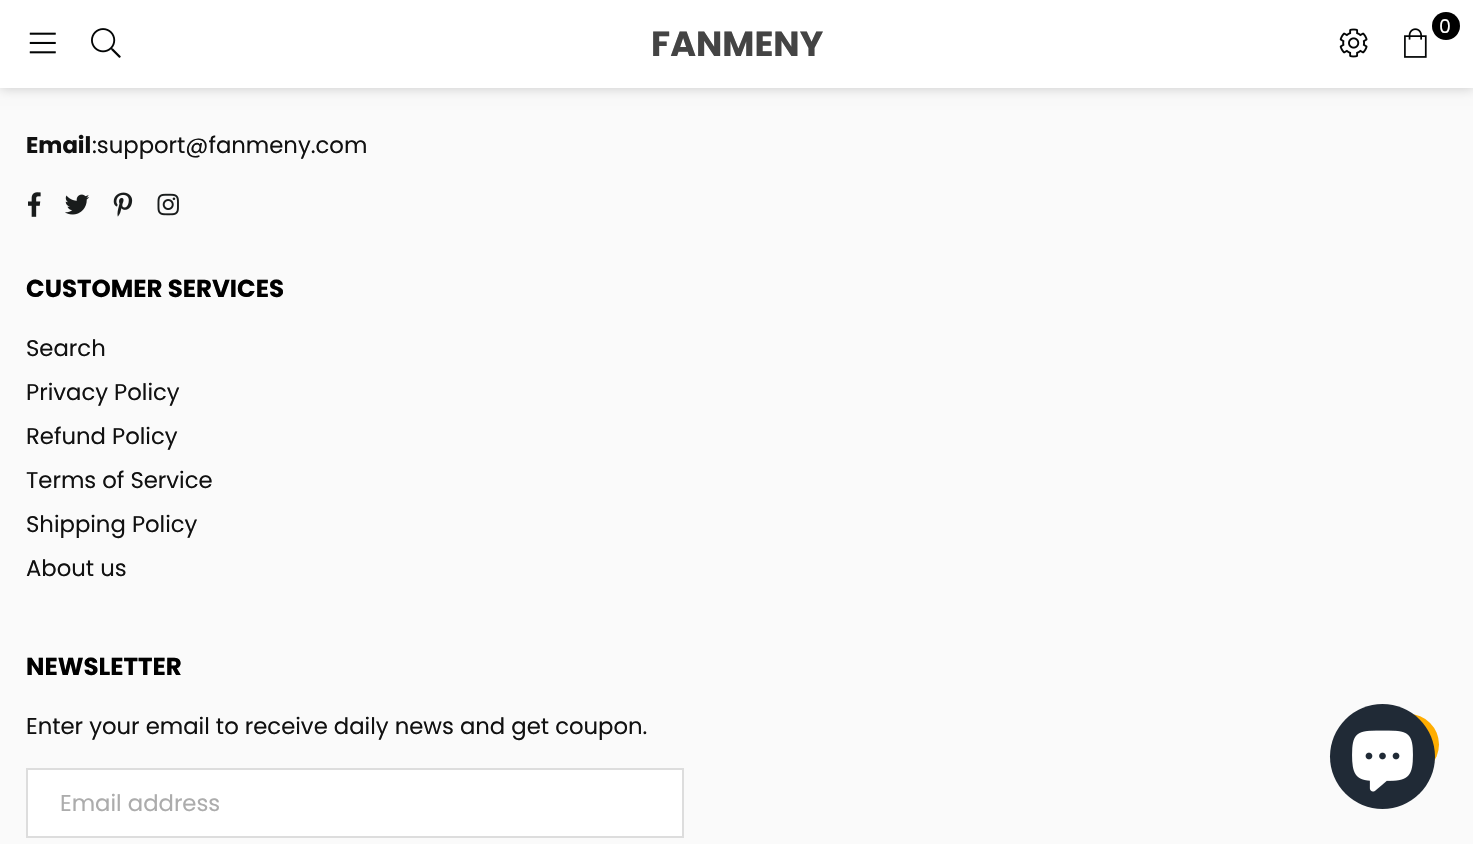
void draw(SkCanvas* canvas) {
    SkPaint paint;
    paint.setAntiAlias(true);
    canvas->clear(0xFFFAFAFA);
    paint.setColor(0x33000000);
    paint.setMaskFilter(SkMaskFilter::MakeBlur(kNormal_SkBlurStyle, 6));
    canvas->drawRect(SkRect::MakeXYWH(0, 0, 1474, 88), paint);
    paint.setMaskFilter(nullptr);
    paint.setColor(0xFFFFFFFF);
    canvas->drawRect(SkRect::MakeXYWH(0, 0, 1473, 88), paint);
    paint.setColor(0xFF000000);
    canvas->drawCircle(1446, 26, 14, paint);
    SkFont font1(fontMgr->matchFamilyStyle("Poppins", SkFontStyle::Normal()), 19);
    font1.setSubpixel(true);
    paint.setColor(0xFFFFFFFF);
    canvas->drawString("0", 1439, 33, font1, paint);
    canvas->drawImageRect(SkImages::DeferredFromEncodedData(SkData::MakeFromFileName("img1.png")), SkRect::MakeXYWH(1404, 28, 23, 30), SkSamplingOptions());
    canvas->drawImageRect(SkImages::DeferredFromEncodedData(SkData::MakeFromFileName("img2.png")), SkRect::MakeXYWH(1339, 28, 29, 30), SkSamplingOptions());
    canvas->drawImageRect(SkImages::DeferredFromEncodedData(SkData::MakeFromFileName("img3.png")), SkRect::MakeXYWH(29, 32, 27, 22), SkSamplingOptions());
    canvas->drawImageRect(SkImages::DeferredFromEncodedData(SkData::MakeFromFileName("img4.png")), SkRect::MakeXYWH(91, 28, 30, 30), SkSamplingOptions());
    SkFont font2(fontMgr->matchFamilyStyle("Poppins", SkFontStyle::Bold()), 35);
    font2.setSubpixel(true);
    paint.setColor(0xFF444444);
    canvas->drawString("FANMENY", 651, 56, font2, paint);
    SkFont font3(fontMgr->matchFamilyStyle("Poppins", SkFontStyle::Bold()), 22.75f);
    font3.setSubpixel(true);
    paint.setColor(0xFF111111);
    canvas->drawString("Email", 26, 153, font3, paint);
    SkFont font4(fontMgr->matchFamilyStyle("Poppins", SkFontStyle::Normal()), 22.75f);
    font4.setSubpixel(true);
    canvas->drawString(":support@fanmeny.com", 92, 153, font4, paint);
    canvas->drawImageRect(SkImages::DeferredFromEncodedData(SkData::MakeFromFileName("img5.png")), SkRect::MakeXYWH(28, 192, 13, 25), SkSamplingOptions());
    canvas->drawImageRect(SkImages::DeferredFromEncodedData(SkData::MakeFromFileName("img6.png")), SkRect::MakeXYWH(65, 194, 25, 21), SkSamplingOptions());
    canvas->drawImageRect(SkImages::DeferredFromEncodedData(SkData::MakeFromFileName("img7.png")), SkRect::MakeXYWH(113, 192, 20, 25), SkSamplingOptions());
    canvas->drawImageRect(SkImages::DeferredFromEncodedData(SkData::MakeFromFileName("img8.png")), SkRect::MakeXYWH(157, 193, 22, 23), SkSamplingOptions());
    SkFont font5(fontMgr->matchFamilyStyle("Poppins", SkFontStyle::Bold()), 24.5f);
    font5.setSubpixel(true);
    paint.setColor(0xFF000000);
    canvas->drawString("CUSTOMER SERVICES", 26, 297, font5, paint);
    paint.setColor(0xFF111111);
    canvas->drawString("Search", 26, 356, font4, paint);
    canvas->drawString("Privacy Policy", 26, 400, font4, paint);
    canvas->drawString("Refund Policy", 26, 444, font4, paint);
    canvas->drawString("Terms of Service", 26, 488, font4, paint);
    canvas->drawString("Shipping Policy", 26, 532, font4, paint);
    canvas->drawString("About us", 26, 576, font4, paint);
    paint.setColor(0xFF000000);
    canvas->drawString("NEWSLETTER", 26, 675, font5, paint);
    paint.setColor(0xFF111111);
    canvas->drawString("Enter your email to receive daily news and get coupon.", 26, 734, font4, paint);
    paint.setColor(0xFFFFFFFF);
    canvas->drawRect(SkRect::MakeXYWH(27, 769, 656, 68), paint);
    paint.setStyle(SkPaint::kStroke_Style);
    paint.setStrokeWidth(2);
    paint.setColor(0xFFDDDDDD);
    canvas->drawRect(SkRect::MakeXYWH(27, 769, 656, 68), paint);
    paint.setStyle(SkPaint::kFill_Style);
    paint.setColor(0xFFACACAC);
    canvas->drawString("Email address", 60, 811, font4, paint);
    paint.setColor(0xFFFFAD00);
    canvas->drawRoundRect(SkRect::MakeXYWH(1377, 714, 62, 61), 30.5f, 30.5f, paint);
    paint.setColor(0xFF202A36);
    canvas->drawCircle(1382.5f, 756.5f, 52.5f, paint);
    canvas->drawImageRect(SkImages::DeferredFromEncodedData(SkData::MakeFromFileName("img9.png")), SkRect::MakeXYWH(1352, 730, 61, 62), SkSamplingOptions());
}
